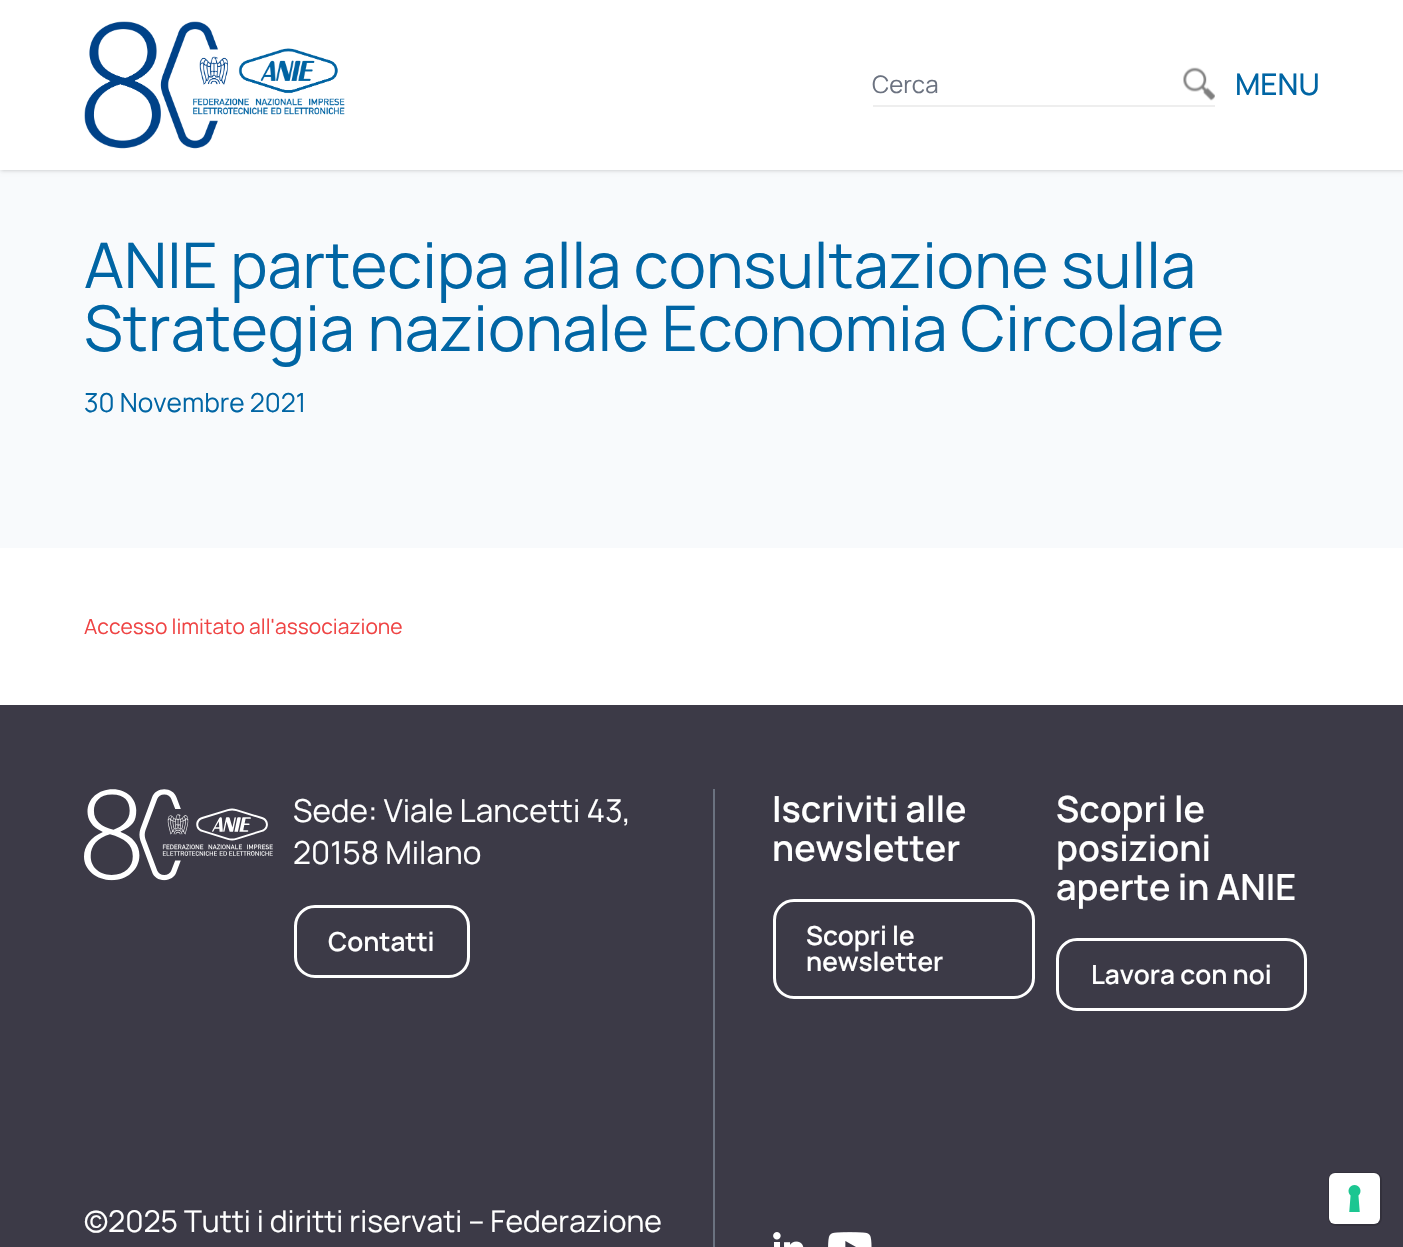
void draw(SkCanvas* canvas) {
    SkPaint paint;
    paint.setAntiAlias(true);
    canvas->clear(0xFFFFFFFF);
    paint.setColor(0xFFF8FAFC);
    canvas->drawRect(SkRect::MakeXYWH(0, 170, 1403, 378), paint);
    paint.setColor(0x1A000000);
    paint.setMaskFilter(SkMaskFilter::MakeBlur(kNormal_SkBlurStyle, 1.5f));
    canvas->drawRect(SkRect::MakeXYWH(2, 3, 1401, 167), paint);
    paint.setMaskFilter(nullptr);
    paint.setMaskFilter(SkMaskFilter::MakeBlur(kNormal_SkBlurStyle, 2));
    canvas->drawRect(SkRect::MakeXYWH(0, 2, 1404, 169), paint);
    paint.setMaskFilter(nullptr);
    paint.setColor(0xFFFFFFFF);
    canvas->drawRect(SkRect::MakeXYWH(0, 0, 1403, 170), paint);
    canvas->drawImageRect(SkImages::DeferredFromEncodedData(SkData::MakeFromFileName("img1.png")), SkRect::MakeXYWH(84, 21, 261, 128), SkSamplingOptions());
    paint.setColor(0xFFEEEEEE);
    canvas->drawRect(SkRect::MakeXYWH(873, 105, 342, 2), paint);
    SkFont font1(fontMgr->matchFamilyStyle("Manrope", SkFontStyle::Normal()), 24);
    font1.setSubpixel(true);
    paint.setColor(0xFF6B7280);
    canvas->drawString("Cerca", 872, 93, font1, paint);
    canvas->drawImageRect(SkImages::DeferredFromEncodedData(SkData::MakeFromFileName("img2.png")), SkRect::MakeXYWH(1183, 67, 32, 34), SkSamplingOptions());
    SkFont font2(fontMgr->matchFamilyStyle("Manrope", SkFontStyle(500, SkFontStyle::kNormal_Width, SkFontStyle::kUpright_Slant)), 30);
    font2.setSubpixel(true);
    paint.setColor(0xFF0065A4);
    canvas->drawString("MENU", 1235, 95, font2, paint);
    SkFont font3(fontMgr->matchFamilyStyle("Manrope", SkFontStyle::Normal()), 63);
    font3.setSubpixel(true);
    canvas->drawString("ANIE partecipa alla consultazione sulla", 84, 288, font3, paint);
    canvas->drawString("Strategia nazionale Economia Circolare", 84, 351, font3, paint);
    SkFont font4(fontMgr->matchFamilyStyle("Manrope", SkFontStyle::Normal()), 26.25f);
    font4.setSubpixel(true);
    canvas->drawString("30 Novembre 2021", 84, 412, font4, paint);
    SkFont font5(fontMgr->matchFamilyStyle("Manrope", SkFontStyle::Normal()), 21);
    font5.setSubpixel(true);
    paint.setColor(0xFFEF4444);
    canvas->drawString("Accesso limitato all'associazione", 84, 634, font5, paint);
    paint.setColor(0xFF3C3A47);
    canvas->drawRect(SkRect::MakeXYWH(0, 705, 1403, 542), paint);
    canvas->drawImageRect(SkImages::DeferredFromEncodedData(SkData::MakeFromFileName("img3.png")), SkRect::MakeXYWH(84, 789, 189, 92), SkSamplingOptions());
    SkFont font6(fontMgr->matchFamilyStyle("Manrope", SkFontStyle::Normal()), 31.5f);
    font6.setSubpixel(true);
    paint.setColor(0xFFFFFFFF);
    canvas->drawString("Sede: Viale Lancetti 43,", 293, 822, font6, paint);
    canvas->drawString("20158 Milano", 293, 864, font6, paint);
    paint.setStyle(SkPaint::kStroke_Style);
    paint.setStrokeWidth(3);
    canvas->drawRoundRect(SkRect::MakeXYWH(295.5f, 906.5f, 173, 70), 19.5f, 19.5f, paint);
    SkFont font7(fontMgr->matchFamilyStyle("Manrope", SkFontStyle(600, SkFontStyle::kNormal_Width, SkFontStyle::kUpright_Slant)), 26.25f);
    font7.setSubpixel(true);
    paint.setStyle(SkPaint::kFill_Style);
    canvas->drawString("Contatti", 328, 951, font7, paint);
    SkFont font8(fontMgr->matchFamilyStyle("Manrope", SkFontStyle::Normal()), 30);
    font8.setSubpixel(true);
    canvas->drawString("©2025 Tutti i diritti riservati – Federazione", 84, 1232, font8, paint);
    paint.setColor(0xFF6B7280);
    canvas->drawRect(SkRect::MakeXYWH(713, 789, 2, 458), paint);
    SkFont font9(fontMgr->matchFamilyStyle("Manrope", SkFontStyle(600, SkFontStyle::kNormal_Width, SkFontStyle::kUpright_Slant)), 36);
    font9.setSubpixel(true);
    paint.setColor(0xFFFFFFFF);
    canvas->drawString("Iscriviti alle", 772, 822, font9, paint);
    canvas->drawString("newsletter", 772, 861, font9, paint);
    paint.setStyle(SkPaint::kStroke_Style);
    canvas->drawRoundRect(SkRect::MakeXYWH(774.5f, 900.5f, 259, 97), 19.5f, 19.5f, paint);
    paint.setStyle(SkPaint::kFill_Style);
    canvas->drawString("Scopri le", 806, 945, font7, paint);
    canvas->drawString("newsletter", 806, 971, font7, paint);
    canvas->drawString("Scopri le", 1056, 822, font9, paint);
    canvas->drawString("posizioni", 1056, 861, font9, paint);
    canvas->drawString("aperte in ANIE", 1056, 900, font9, paint);
    paint.setStyle(SkPaint::kStroke_Style);
    canvas->drawRoundRect(SkRect::MakeXYWH(1057.5f, 939.5f, 248, 70), 19.5f, 19.5f, paint);
    paint.setStyle(SkPaint::kFill_Style);
    canvas->drawString("Lavora con noi", 1091, 984, font7, paint);
    canvas->drawImageRect(SkImages::DeferredFromEncodedData(SkData::MakeFromFileName("img4.png")), SkRect::MakeXYWH(773, 1232, 31, 15), SkSamplingOptions());
    canvas->drawImageRect(SkImages::DeferredFromEncodedData(SkData::MakeFromFileName("img5.png")), SkRect::MakeXYWH(828, 1232, 44, 15), SkSamplingOptions());
    paint.setStyle(SkPaint::kStroke_Style);
    paint.setStrokeWidth(2);
    paint.setColor(0xFF33313C);
    canvas->drawRoundRect(SkRect::MakeXYWH(1329, 1173, 52, 52), 7, 7, paint);
    paint.setStyle(SkPaint::kFill_Style);
    paint.setColor(0xFFFFFFFF);
    canvas->drawRoundRect(SkRect::MakeXYWH(1329, 1173, 51, 51), 6, 6, paint);
    canvas->drawImageRect(SkImages::DeferredFromEncodedData(SkData::MakeFromFileName("img6.png")), SkRect::MakeXYWH(1348, 1185, 13, 27), SkSamplingOptions());
}
